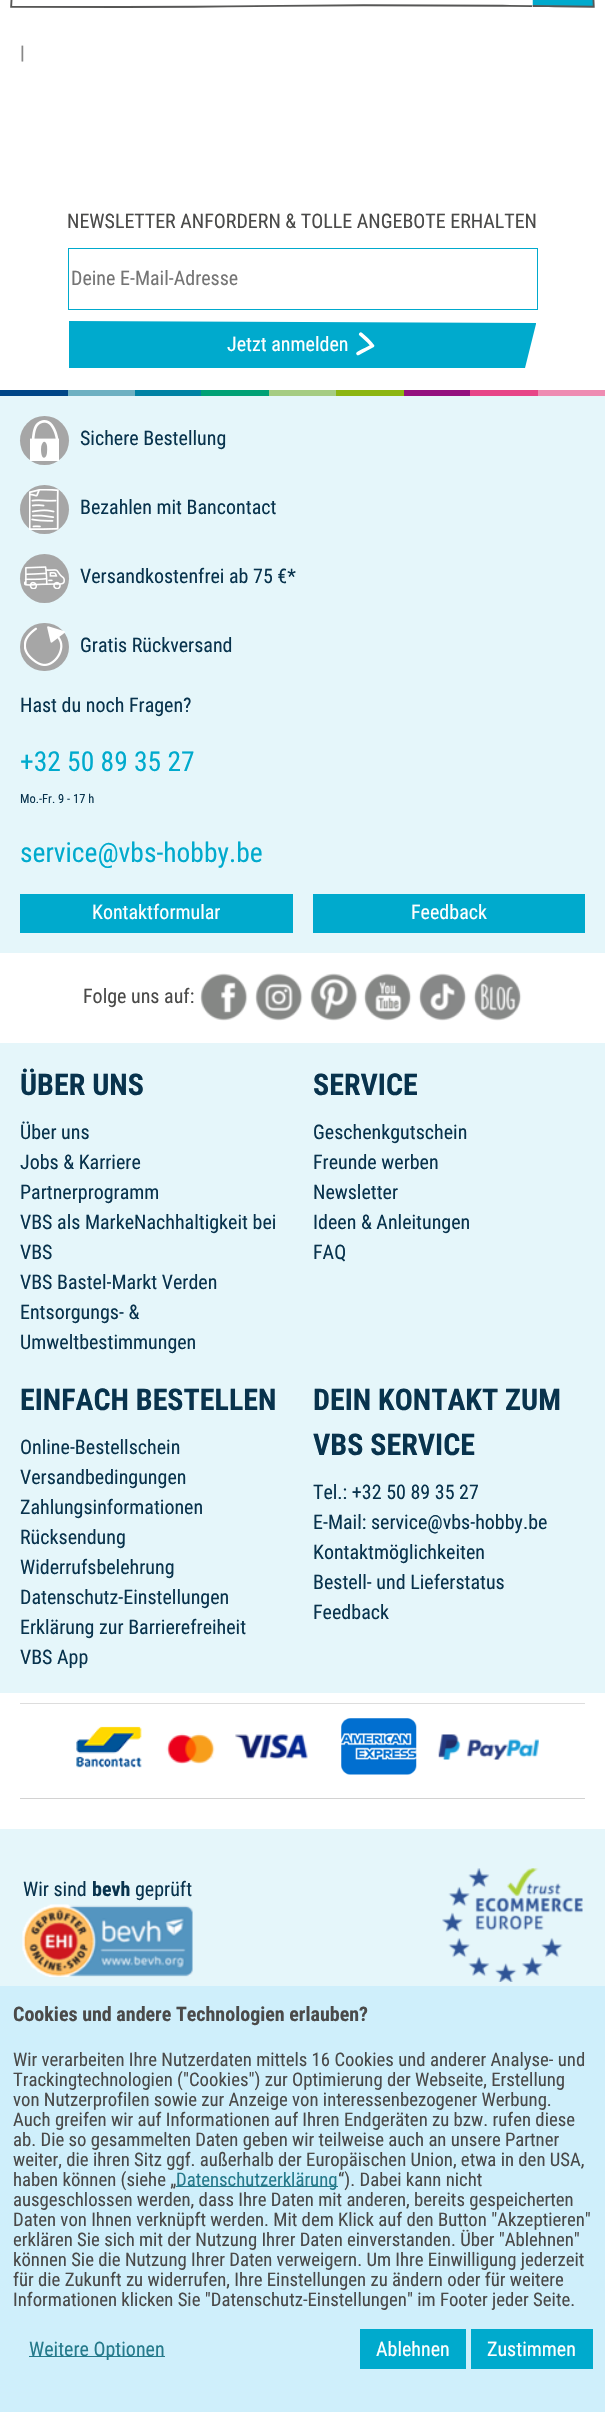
void draw(SkCanvas* canvas) {
    SkPaint paint;
    paint.setAntiAlias(true);
    canvas->clear(0xFFFFFFFF);
    canvas->drawImageRect(SkImages::DeferredFromEncodedData(SkData::MakeFromFileName("img1.png")), SkRect::MakeXYWH(10, 0, 523, 8), SkSamplingOptions());
    canvas->drawImageRect(SkImages::DeferredFromEncodedData(SkData::MakeFromFileName("img2.png")), SkRect::MakeXYWH(532, 0, 63, 8), SkSamplingOptions());
    SkFont font1(fontMgr->matchFamilyStyle("Roboto Condensed", SkFontStyle::Bold()), 18.75f);
    font1.setSubpixel(true);
    paint.setColor(0xFF878787);
    canvas->drawString("|", 20, 59, font1, paint);
    SkFont font2(fontMgr->matchFamilyStyle("Roboto Condensed", SkFontStyle::Normal()), 20);
    font2.setSubpixel(true);
    paint.setColor(0xFF4A4A49);
    canvas->drawString("NEWSLETTER ANFORDERN & TOLLE ANGEBOTE ERHALTEN", 67, 228, font2, paint);
    paint.setStyle(SkPaint::kStroke_Style);
    paint.setStrokeWidth(1);
    paint.setColor(0xFF00AACD);
    canvas->drawRect(SkRect::MakeXYWH(68.5f, 248.5f, 469, 61), paint);
    paint.setStyle(SkPaint::kFill_Style);
    paint.setColor(0xFF757575);
    canvas->drawString("Deine E-Mail-Adresse", 71, 285, font2, paint);
    paint.setColor(0xFF00AACD);
    canvas->drawPath(SkPathBuilder().moveTo(69, 321).lineTo(536, 323).lineTo(536, 324).lineTo(525, 368).lineTo(69, 368).close().detach(), paint);
    paint.setColor(0xFFFFFFFF);
    canvas->drawString("Jetzt anmelden", 227, 351, font2, paint);
    canvas->drawImageRect(SkImages::DeferredFromEncodedData(SkData::MakeFromFileName("img3.png")), SkRect::MakeXYWH(356, 332, 19, 24), SkSamplingOptions());
    paint.setColor(0xFF004687);
    canvas->drawRect(SkRect::MakeXYWH(0, 390, 68, 6), paint);
    paint.setColor(0xFF6DB0C1);
    canvas->drawRect(SkRect::MakeXYWH(68, 390, 67, 6), paint);
    paint.setColor(0xFF0082A4);
    canvas->drawRect(SkRect::MakeXYWH(135, 390, 66, 6), paint);
    paint.setColor(0xFF00A175);
    canvas->drawRect(SkRect::MakeXYWH(201, 390, 68, 6), paint);
    paint.setColor(0xFFA5CC82);
    canvas->drawRect(SkRect::MakeXYWH(269, 390, 67, 6), paint);
    paint.setColor(0xFF8CB612);
    canvas->drawRect(SkRect::MakeXYWH(336, 390, 68, 6), paint);
    paint.setColor(0xFF93117E);
    canvas->drawRect(SkRect::MakeXYWH(404, 390, 66, 6), paint);
    paint.setColor(0xFFE74587);
    canvas->drawRect(SkRect::MakeXYWH(470, 390, 68, 6), paint);
    paint.setColor(0xFFEE8CB2);
    canvas->drawRect(SkRect::MakeXYWH(538, 390, 67, 6), paint);
    paint.setColor(0xFFE5F6FA);
    canvas->drawRect(SkRect::MakeXYWH(0, 396, 605, 557), paint);
    paint.setColor(0xFFA6A6A6);
    canvas->drawCircle(44.5f, 440.5f, 24.5f, paint);
    canvas->drawImageRect(SkImages::DeferredFromEncodedData(SkData::MakeFromFileName("img4.png")), SkRect::MakeXYWH(30, 420, 29, 41), SkSamplingOptions());
    paint.setColor(0xFF08334D);
    canvas->drawString("Sichere Bestellung", 80, 445, font2, paint);
    paint.setColor(0xFFA6A6A6);
    canvas->drawCircle(44.5f, 509.5f, 24.5f, paint);
    canvas->drawImageRect(SkImages::DeferredFromEncodedData(SkData::MakeFromFileName("img5.png")), SkRect::MakeXYWH(29, 489, 30, 41), SkSamplingOptions());
    paint.setColor(0xFF08334D);
    canvas->drawString("Bezahlen mit Bancontact", 80, 514, font2, paint);
    paint.setColor(0xFFA6A6A6);
    canvas->drawCircle(44.5f, 578.5f, 24.5f, paint);
    canvas->drawImageRect(SkImages::DeferredFromEncodedData(SkData::MakeFromFileName("img6.png")), SkRect::MakeXYWH(24, 566, 41, 23), SkSamplingOptions());
    paint.setColor(0xFF08334D);
    canvas->drawString("Versandkostenfrei ab 75 €*", 80, 583, font2, paint);
    paint.setColor(0xFFA6A6A6);
    canvas->drawRoundRect(SkRect::MakeXYWH(20, 623, 49, 48), 24, 24, paint);
    canvas->drawImageRect(SkImages::DeferredFromEncodedData(SkData::MakeFromFileName("img7.png")), SkRect::MakeXYWH(24, 626, 41, 40), SkSamplingOptions());
    paint.setColor(0xFF08334D);
    canvas->drawString("Gratis Rückversand", 80, 652, font2, paint);
    canvas->drawString("Hast du noch Fragen?", 20, 712, font2, paint);
    SkFont font3(fontMgr->matchFamilyStyle("Roboto Condensed", SkFontStyle::Normal()), 27.5f);
    font3.setSubpixel(true);
    paint.setColor(0xFF00AACD);
    canvas->drawString("+32 50 89 35 27", 20, 771, font3, paint);
    SkFont font4(fontMgr->matchFamilyStyle("Roboto Condensed", SkFontStyle::Normal()), 12.5f);
    font4.setSubpixel(true);
    paint.setColor(0xFF08334D);
    canvas->drawString("Mo.-Fr. 9 - 17 h", 20, 803, font4, paint);
    paint.setColor(0xFF00AACD);
    canvas->drawString("service@vbs-hobby.be", 20, 862, font3, paint);
    canvas->drawRect(SkRect::MakeXYWH(20, 894, 273, 39), paint);
    paint.setColor(0xFFFFFFFF);
    canvas->drawString("Kontaktformular", 92, 919, font2, paint);
    paint.setColor(0xFF00AACD);
    canvas->drawRect(SkRect::MakeXYWH(313, 894, 272, 39), paint);
    paint.setColor(0xFFFFFFFF);
    canvas->drawString("Feedback", 411, 919, font2, paint);
    paint.setColor(0xFF4A4A49);
    canvas->drawString("Folge uns auf:", 83, 1003, font2, paint);
    canvas->drawImageRect(SkImages::DeferredFromEncodedData(SkData::MakeFromFileName("img8.png")), SkRect::MakeXYWH(200, 973, 48, 48), SkSamplingOptions());
    canvas->drawImageRect(SkImages::DeferredFromEncodedData(SkData::MakeFromFileName("img9.png")), SkRect::MakeXYWH(255, 973, 48, 48), SkSamplingOptions());
    canvas->drawImageRect(SkImages::DeferredFromEncodedData(SkData::MakeFromFileName("img10.png")), SkRect::MakeXYWH(310, 973, 48, 48), SkSamplingOptions());
    canvas->drawImageRect(SkImages::DeferredFromEncodedData(SkData::MakeFromFileName("img11.png")), SkRect::MakeXYWH(363, 973, 49, 48), SkSamplingOptions());
    canvas->drawImageRect(SkImages::DeferredFromEncodedData(SkData::MakeFromFileName("img12.png")), SkRect::MakeXYWH(418, 973, 49, 48), SkSamplingOptions());
    canvas->drawImageRect(SkImages::DeferredFromEncodedData(SkData::MakeFromFileName("img13.png")), SkRect::MakeXYWH(473, 973, 49, 48), SkSamplingOptions());
    paint.setColor(0xFFE5F6FA);
    canvas->drawRect(SkRect::MakeXYWH(0, 1043, 605, 650), paint);
    SkFont font5(fontMgr->matchFamilyStyle("Roboto Condensed", SkFontStyle::Bold()), 30);
    font5.setSubpixel(true);
    paint.setColor(0xFF08334D);
    canvas->drawString("ÜBER UNS", 20, 1095, font5, paint);
    canvas->drawString("Über uns", 20, 1139, font2, paint);
    canvas->drawString("Jobs & Karriere", 20, 1169, font2, paint);
    canvas->drawString("Partnerprogramm", 20, 1199, font2, paint);
    canvas->drawString("VBS als MarkeNachhaltigkeit bei", 20, 1229, font2, paint);
    canvas->drawString("VBS", 20, 1259, font2, paint);
    canvas->drawString("VBS Bastel-Markt Verden", 20, 1289, font2, paint);
    canvas->drawString("Entsorgungs- &", 20, 1319, font2, paint);
    canvas->drawString("Umweltbestimmungen", 20, 1349, font2, paint);
    canvas->drawString("SERVICE", 313, 1095, font5, paint);
    canvas->drawString("Geschenkgutschein", 313, 1139, font2, paint);
    canvas->drawString("Freunde werben", 313, 1169, font2, paint);
    canvas->drawString("Newsletter", 313, 1199, font2, paint);
    canvas->drawString("Ideen & Anleitungen", 313, 1229, font2, paint);
    canvas->drawString("FAQ", 313, 1259, font2, paint);
    canvas->drawString("EINFACH BESTELLEN", 20, 1410, font5, paint);
    canvas->drawString("Online-Bestellschein", 20, 1454, font2, paint);
    canvas->drawString("Versandbedingungen", 20, 1484, font2, paint);
    canvas->drawString("Zahlungsinformationen", 20, 1514, font2, paint);
    canvas->drawString("Rücksendung", 20, 1544, font2, paint);
    canvas->drawString("Widerrufsbelehrung", 20, 1574, font2, paint);
    canvas->drawString("Datenschutz-Einstellungen", 20, 1604, font2, paint);
    canvas->drawString("Erklärung zur Barrierefreiheit", 20, 1634, font2, paint);
    canvas->drawString("VBS App", 20, 1664, font2, paint);
    canvas->drawString("DEIN KONTAKT ZUM", 313, 1410, font5, paint);
    canvas->drawString("VBS SERVICE", 313, 1455, font5, paint);
    canvas->drawString("Tel.: +32 50 89 35 27", 313, 1499, font2, paint);
    canvas->drawString("E-Mail: service@vbs-hobby.be", 313, 1529, font2, paint);
    canvas->drawString("Kontaktmöglichkeiten", 313, 1559, font2, paint);
    canvas->drawString("Bestell- und Lieferstatus", 313, 1589, font2, paint);
    canvas->drawString("Feedback", 313, 1619, font2, paint);
    paint.setColor(0xFFDDDDDD);
    canvas->drawRect(SkRect::MakeXYWH(20, 1703, 565, 1), paint);
    canvas->drawImageRect(SkImages::DeferredFromEncodedData(SkData::MakeFromFileName("img14.png")), SkRect::MakeXYWH(76, 1726, 66, 42), SkSamplingOptions());
    canvas->drawImageRect(SkImages::DeferredFromEncodedData(SkData::MakeFromFileName("img15.png")), SkRect::MakeXYWH(166, 1733, 49, 31), SkSamplingOptions());
    canvas->drawImageRect(SkImages::DeferredFromEncodedData(SkData::MakeFromFileName("img16.png")), SkRect::MakeXYWH(235, 1734, 73, 25), SkSamplingOptions());
    canvas->drawImageRect(SkImages::DeferredFromEncodedData(SkData::MakeFromFileName("img17.png")), SkRect::MakeXYWH(341, 1718, 76, 57), SkSamplingOptions());
    canvas->drawImageRect(SkImages::DeferredFromEncodedData(SkData::MakeFromFileName("img18.png")), SkRect::MakeXYWH(438, 1734, 101, 26), SkSamplingOptions());
    paint.setColor(0xFFD2D2D2);
    canvas->drawRect(SkRect::MakeXYWH(20, 1798, 565, 1), paint);
    paint.setColor(0xFFE5F6FA);
    canvas->drawRect(SkRect::MakeXYWH(0, 1829, 605, 157), paint);
    paint.setColor(0xFF08334D);
    canvas->drawString("Wir sind", 23, 1896, font2, paint);
    SkFont font6(fontMgr->matchFamilyStyle("Roboto Condensed", SkFontStyle::Bold()), 20);
    font6.setSubpixel(true);
    canvas->drawString("bevh", 92, 1896, font6, paint);
    canvas->drawString("geprüft", 135, 1896, font2, paint);
    canvas->drawImageRect(SkImages::DeferredFromEncodedData(SkData::MakeFromFileName("img19.png")), SkRect::MakeXYWH(22, 1904, 171, 73), SkSamplingOptions());
    canvas->drawImageRect(SkImages::DeferredFromEncodedData(SkData::MakeFromFileName("img20.png")), SkRect::MakeXYWH(442, 1868, 141, 114), SkSamplingOptions());
    paint.setColor(0xFFCFEFFB);
    canvas->drawRect(SkRect::MakeXYWH(0, 1986, 605, 426), paint);
    paint.setColor(0xFF4A4A49);
    canvas->drawString("Cookies und andere Technologien erlauben?", 13, 2021, font6, paint);
    SkFont font7(fontMgr->matchFamilyStyle("Roboto Condensed", SkFontStyle::Normal()), 18.75f);
    font7.setSubpixel(true);
    canvas->drawString("Wir verarbeiten Ihre Nutzerdaten mittels 16 Cookies und anderer Analyse- und", 13, 2066, font7, paint);
    canvas->drawString("Trackingtechnologien (\"Cookies\") zur Optimierung der Webseite, Erstellung", 13, 2086, font7, paint);
    canvas->drawString("von Nutzerprofilen sowie zur Anzeige von interessenbezogener Werbung.", 13, 2106, font7, paint);
    canvas->drawString("Auch greifen wir auf Informationen auf Ihren Endgeräten zu bzw. rufen diese", 13, 2126, font7, paint);
    canvas->drawString("ab. Die so gesammelten Daten geben wir teilweise auch an unsere Partner", 13, 2146, font7, paint);
    canvas->drawString("weiter, die ihren Sitz ggf. außerhalb der Europäischen Union, etwa in den USA,", 13, 2166, font7, paint);
    canvas->drawString("haben können (siehe „", 13, 2186, font7, paint);
    paint.setColor(0xFF257A8B);
    canvas->drawRect(SkRect::MakeXYWH(176, 2186, 162, 1), paint);
    canvas->drawString("Datenschutzerklärung", 176, 2186, font7, paint);
    paint.setColor(0xFF4A4A49);
    canvas->drawString("“). Dabei kann nicht", 338, 2186, font7, paint);
    canvas->drawString("ausgeschlossen werden, dass Ihre Daten mit anderen, bereits gespeicherten", 13, 2206, font7, paint);
    canvas->drawString("Daten von Ihnen verknüpft werden. Mit dem Klick auf den Button \"Akzeptieren\"", 13, 2226, font7, paint);
    canvas->drawString("erklären Sie sich mit der Nutzung Ihrer Daten einverstanden. Über \"Ablehnen\"", 13, 2246, font7, paint);
    canvas->drawString("können Sie die Nutzung Ihrer Daten verweigern. Um Ihre Einwilligung jederzeit", 13, 2266, font7, paint);
    canvas->drawString("für die Zukunft zu widerrufen, Ihre Einstellungen zu ändern oder für weitere", 13, 2286, font7, paint);
    canvas->drawString("Informationen klicken Sie \"Datenschutz-Einstellungen\" im Footer jeder Seite.", 13, 2306, font7, paint);
    paint.setColor(0xFF257A8B);
    canvas->drawRect(SkRect::MakeXYWH(29, 2356, 136, 1), paint);
    canvas->drawString("Weitere Optionen", 29, 2356, font2, paint);
    paint.setColor(0xFF00AACD);
    canvas->drawRect(SkRect::MakeXYWH(360, 2329, 106, 40), paint);
    paint.setColor(0xFFFFFFFF);
    canvas->drawString("Ablehnen", 376, 2356, font2, paint);
    paint.setColor(0xFF00AACD);
    canvas->drawRect(SkRect::MakeXYWH(471, 2329, 122, 40), paint);
    paint.setColor(0xFFFFFFFF);
    canvas->drawString("Zustimmen", 487, 2356, font2, paint);
}
